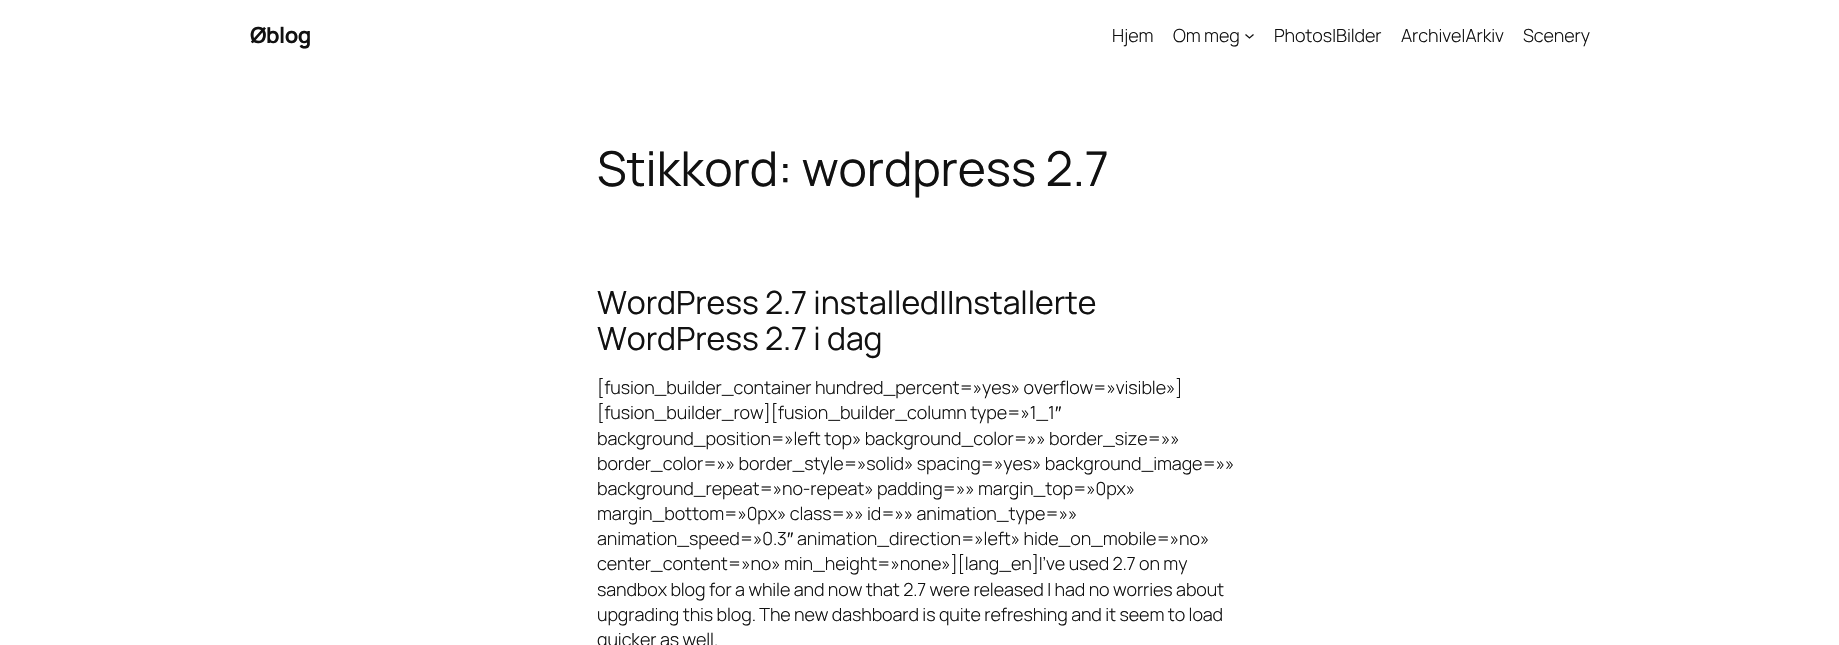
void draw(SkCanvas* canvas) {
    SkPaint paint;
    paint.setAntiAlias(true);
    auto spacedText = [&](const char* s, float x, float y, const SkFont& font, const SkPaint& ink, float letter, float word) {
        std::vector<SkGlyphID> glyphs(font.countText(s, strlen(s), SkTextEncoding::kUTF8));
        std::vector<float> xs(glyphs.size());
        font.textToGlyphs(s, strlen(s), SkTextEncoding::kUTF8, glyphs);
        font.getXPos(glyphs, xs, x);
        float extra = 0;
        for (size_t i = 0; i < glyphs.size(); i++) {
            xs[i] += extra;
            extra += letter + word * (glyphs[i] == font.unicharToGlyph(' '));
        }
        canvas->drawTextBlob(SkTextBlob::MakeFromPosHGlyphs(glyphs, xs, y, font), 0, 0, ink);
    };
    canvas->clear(0xFFFFFFFF);
    SkFont font1(fontMgr->matchFamilyStyle("Manrope", SkFontStyle::Bold()), 22);
    font1.setSubpixel(true);
    paint.setColor(0xFF111111);
    spacedText("Øblog", 250, 43, font1, paint, -0.5f, 0);
    SkFont font2(fontMgr->matchFamilyStyle("Manrope", SkFontStyle(300, SkFontStyle::kNormal_Width, SkFontStyle::kUpright_Slant)), 18);
    font2.setSubpixel(true);
    spacedText("Hjem", 1112, 42, font2, paint, -0.1f, 0);
    spacedText("Om meg", 1173, 42, font2, paint, -0.1f, 0);
    paint.setStyle(SkPaint::kStroke_Style);
    paint.setStrokeWidth(1.3f);
    canvas->drawPath(SkPathBuilder().moveTo(1245.5f, 34.5f).lineTo(1249.5f, 38).lineTo(1253.5f, 34.5f).detach(), paint);
    paint.setStyle(SkPaint::kFill_Style);
    spacedText("Photos|Bilder", 1274, 42, font2, paint, -0.1f, 0);
    spacedText("Archive|Arkiv", 1401, 42, font2, paint, -0.1f, 0);
    spacedText("Scenery", 1523, 42, font2, paint, -0.1f, 0);
    SkFont font3(fontMgr->matchFamilyStyle("Manrope", SkFontStyle::Normal()), 48);
    font3.setSubpixel(true);
    spacedText("Stikkord: wordpress 2.7", 597, 186, font3, paint, -0.1f, 0);
    SkFont font4(fontMgr->matchFamilyStyle("Manrope", SkFontStyle::Normal()), 32);
    font4.setSubpixel(true);
    spacedText("WordPress 2.7 installed|Installerte", 597, 314, font4, paint, -0.1f, 0);
    spacedText("WordPress 2.7 i dag", 597, 350, font4, paint, -0.1f, 0);
    spacedText("[fusion_builder_container hundred_percent=»yes» overflow=»visible»]", 597, 394, font2, paint, -0.1f, 0);
    spacedText("[fusion_builder_row][fusion_builder_column type=»1_1", 597, 419, font2, paint, -0.1f, 0);
    SkFont font5(fontMgr->matchFamilyStyle("Liberation Sans", SkFontStyle::Normal()), 18);
    font5.setSubpixel(true);
    spacedText("″", 1055, 419, font5, paint, -0.1f, 0);
    spacedText("background_position=»left top» background_color=»» border_size=»»", 597, 445, font2, paint, -0.1f, 0);
    spacedText("border_color=»» border_style=»solid» spacing=»yes» background_image=»»", 597, 470, font2, paint, -0.1f, 0);
    spacedText("background_repeat=»no-repeat» padding=»» margin_top=»0px»", 597, 495, font2, paint, -0.1f, 0);
    spacedText("margin_bottom=»0px» class=»» id=»» animation_type=»»", 597, 520, font2, paint, -0.1f, 0);
    spacedText("animation_speed=»0.3", 597, 545, font2, paint, -0.1f, 0);
    spacedText("″", 787, 545, font5, paint, -0.1f, 0);
    spacedText("animation_direction=»left» hide_on_mobile=»no»", 797, 545, font2, paint, -0.1f, 0);
    spacedText("center_content=»no» min_height=»none»][lang_en]I’ve used 2.7 on my", 597, 570, font2, paint, -0.1f, 0);
    spacedText("sandbox blog for a while and now that 2.7 were released I had no worries about", 597, 596, font2, paint, -0.1f, 0);
    spacedText("upgrading this blog. The new dashboard is quite refreshing and it seem to load", 597, 621, font2, paint, -0.1f, 0);
    spacedText("quicker as well.", 597, 646, font2, paint, -0.1f, 0);
}
